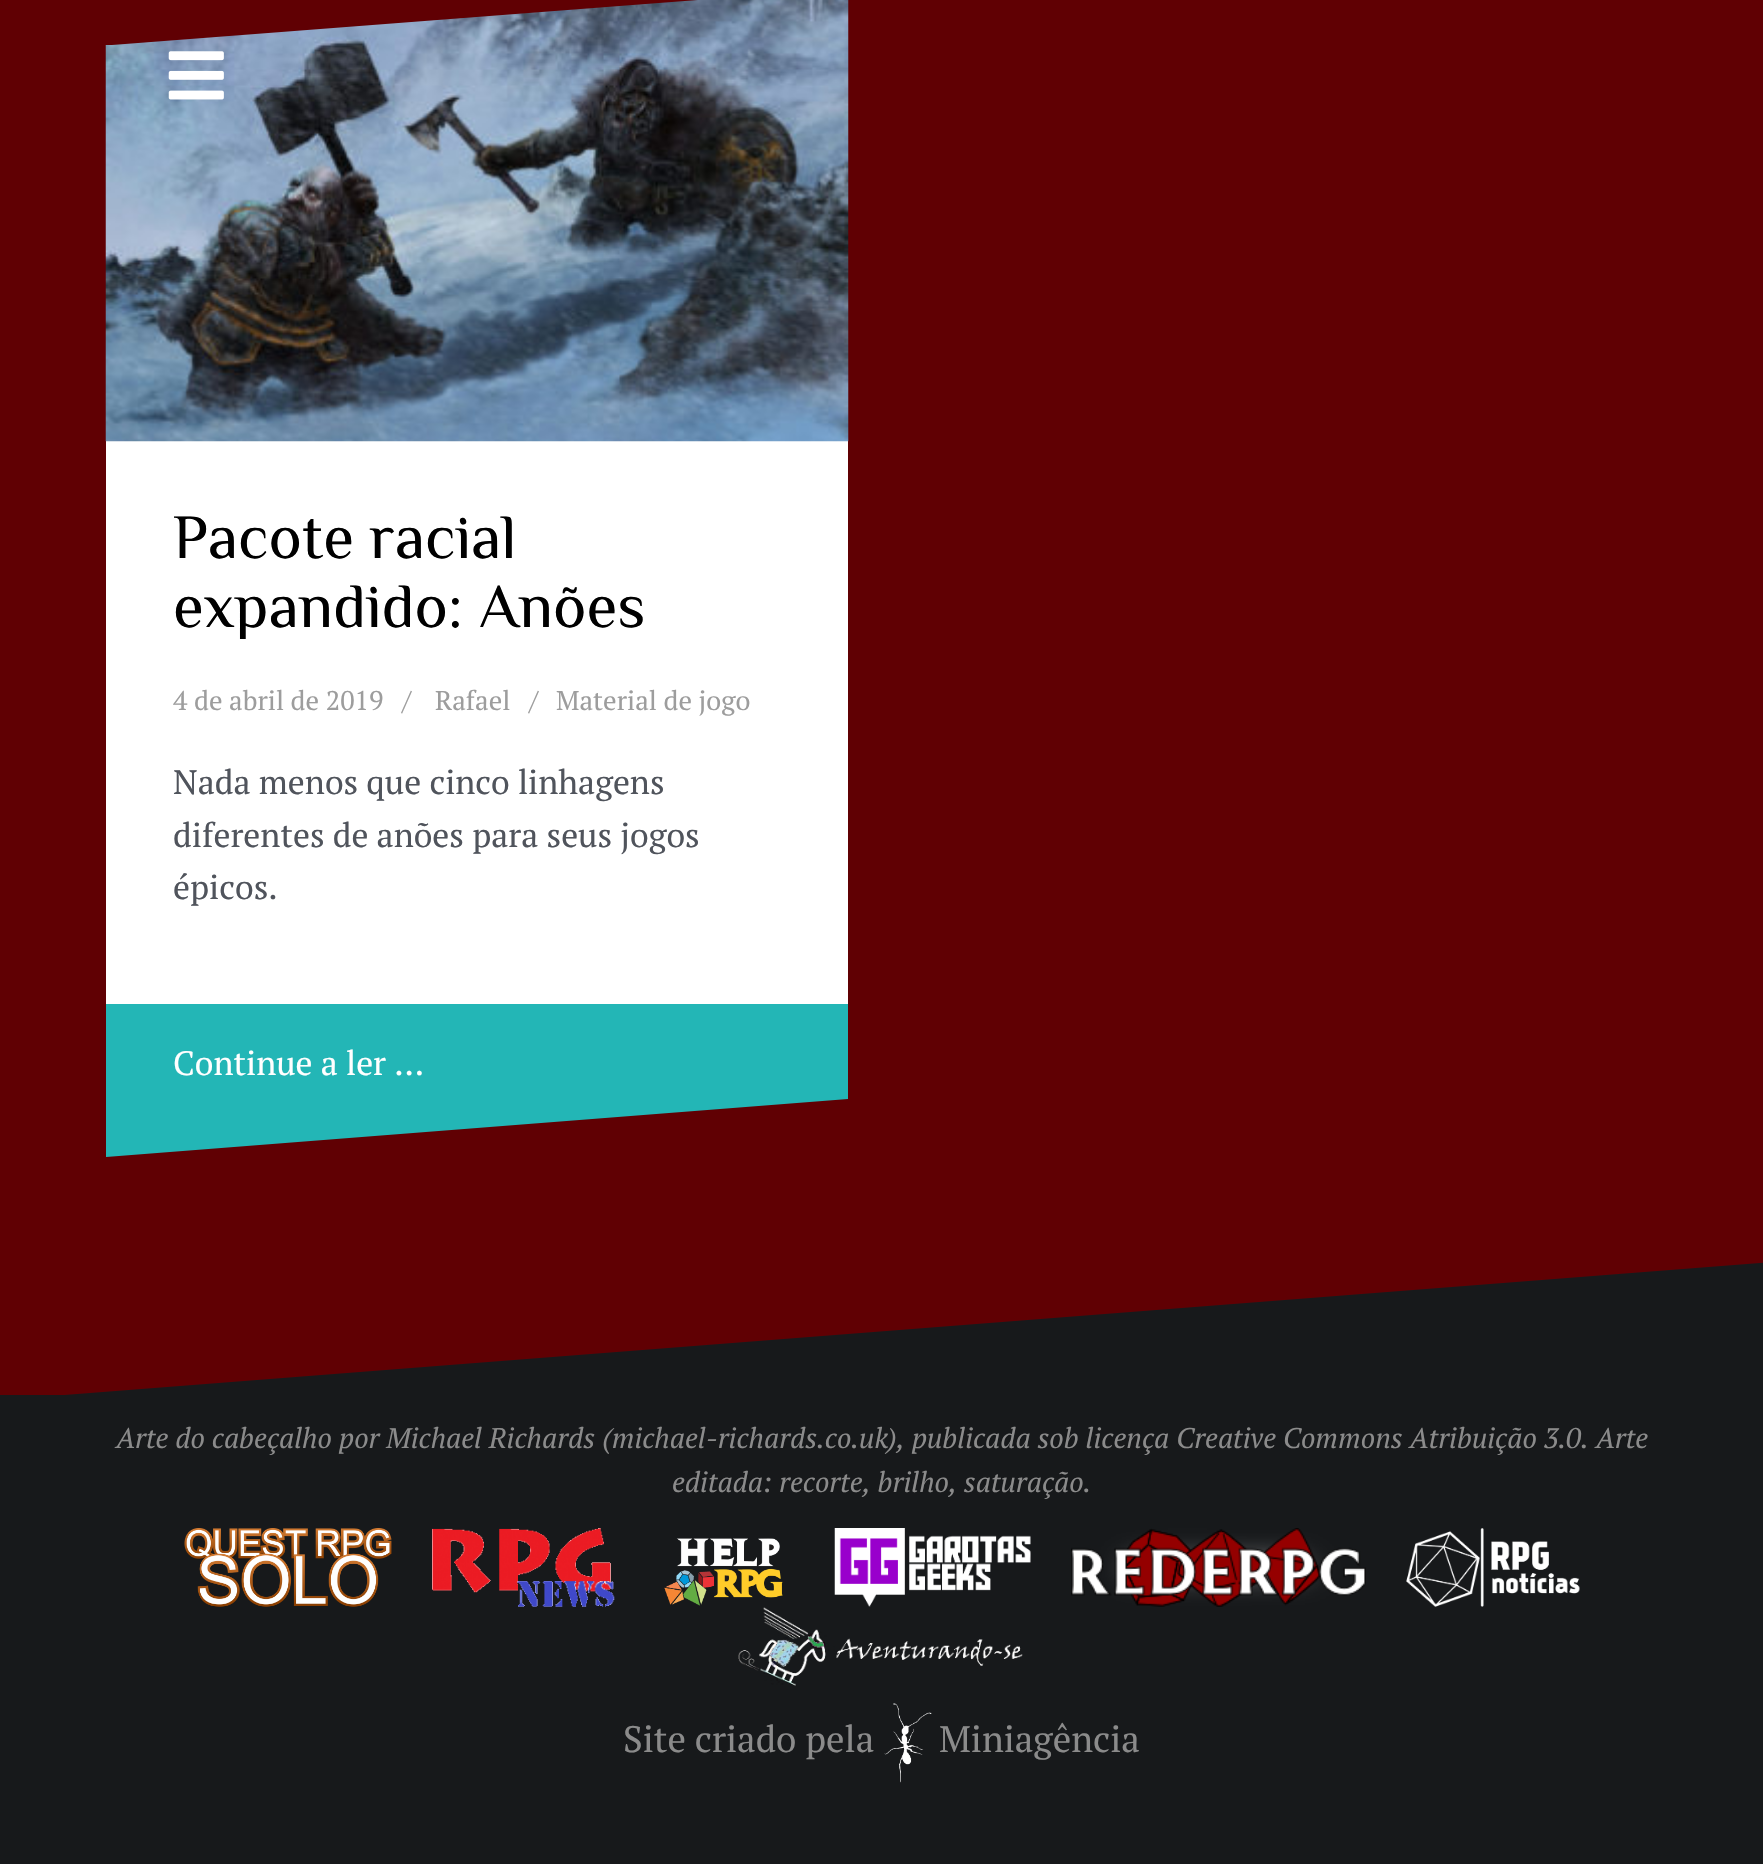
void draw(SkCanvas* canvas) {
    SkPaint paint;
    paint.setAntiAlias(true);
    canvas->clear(0xFF600003);
    paint.setColor(0xFFFFFFFF);
    canvas->drawRect(SkRect::MakeXYWH(106, 441, 742, 563), paint);
    canvas->drawImageRect(SkImages::DeferredFromEncodedData(SkData::MakeFromFileName("img2.png")), SkRect::MakeXYWH(105, 0, 744, 442), SkSamplingOptions());
    canvas->drawImageRect(SkImages::DeferredFromEncodedData(SkData::MakeFromFileName("img1.png")), SkRect::MakeXYWH(168, 51, 56, 49), SkSamplingOptions());
    canvas->save();
    canvas->clipRect(SkRect::MakeXYWH(99, 0, 743, 45));
    paint.setColor(0xFF600003);
    canvas->drawPath(SkPathBuilder().moveTo(99, 46).lineTo(99, -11).lineTo(841, -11).detach(), paint);
    canvas->restore();
    SkFont font1(fontMgr->matchFamilyStyle("El Messiri", SkFontStyle::Normal()), 63);
    font1.setSubpixel(true);
    paint.setColor(0xFF000000);
    canvas->drawString("Pacote racial", 173, 558, font1, paint);
    canvas->drawString("expandido: Anões", 173, 627, font1, paint);
    SkFont font2(fontMgr->matchFamilyStyle("PT Serif", SkFontStyle::Normal()), 27);
    font2.setSubpixel(true);
    paint.setColor(0xFF9D9D9D);
    canvas->drawString("4 de abril de 2019", 173, 710, font2, paint);
    canvas->drawString("/", 402, 710, font2, paint);
    canvas->drawString("Rafael", 435, 710, font2, paint);
    canvas->drawString("/", 529, 710, font2, paint);
    canvas->drawString("Material de jogo", 556, 710, font2, paint);
    SkFont font3(fontMgr->matchFamilyStyle("PT Serif", SkFontStyle::Normal()), 33.75f);
    font3.setSubpixel(true);
    paint.setColor(0xFF50545C);
    canvas->drawString("Nada menos que cinco linhagens", 173, 794, font3, paint);
    canvas->drawString("diferentes de anões para seus jogos", 173, 847, font3, paint);
    canvas->drawString("épicos.", 173, 899, font3, paint);
    paint.setColor(0xFF23B6B6);
    canvas->drawRect(SkRect::MakeXYWH(106, 1004, 742, 153), paint);
    paint.setColor(0xFFFFFFFF);
    canvas->drawString("Continue a ler …", 173, 1075, font3, paint);
    canvas->save();
    canvas->clipRect(SkRect::MakeXYWH(106, 1098, 742, 61));
    paint.setColor(0xFF600003);
    canvas->drawPath(SkPathBuilder().moveTo(862, 1098).lineTo(862, 1157).lineTo(106, 1157).detach(), paint);
    canvas->restore();
    paint.setColor(0xFF17191B);
    canvas->drawRect(SkRect::MakeXYWH(0, 1395, 1763, 469), paint);
    canvas->drawPath(SkPathBuilder().moveTo(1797, 1260).lineTo(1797, 1400).lineTo(0, 1400).detach(), paint);
    SkFont font4(fontMgr->matchFamilyStyle("PT Serif", SkFontStyle::Italic()), 28.35f);
    font4.setSubpixel(true);
    paint.setColor(0xFF8B8B8B);
    canvas->drawString("Arte do cabeçalho por Michael Richards (michael-richards.co.uk", 116, 1448, font4, paint);
    canvas->drawString("), publicada sob licença Creative Commons Atribuição 3.0. Arte", 887, 1448, font4, paint);
    canvas->drawString("editada: recorte, brilho, saturação.", 672, 1492, font4, paint);
    canvas->drawImageRect(SkImages::DeferredFromEncodedData(SkData::MakeFromFileName("img3.png")), SkRect::MakeXYWH(184, 1528, 208, 79), SkSamplingOptions());
    canvas->drawImageRect(SkImages::DeferredFromEncodedData(SkData::MakeFromFileName("img4.png")), SkRect::MakeXYWH(432, 1528, 183, 79), SkSamplingOptions());
    canvas->drawImageRect(SkImages::DeferredFromEncodedData(SkData::MakeFromFileName("img5.png")), SkRect::MakeXYWH(664, 1538, 119, 68), SkSamplingOptions());
    canvas->drawImageRect(SkImages::DeferredFromEncodedData(SkData::MakeFromFileName("img6.png")), SkRect::MakeXYWH(834, 1528, 197, 79), SkSamplingOptions());
    canvas->drawImageRect(SkImages::DeferredFromEncodedData(SkData::MakeFromFileName("img7.png")), SkRect::MakeXYWH(1071, 1528, 295, 79), SkSamplingOptions());
    canvas->drawImageRect(SkImages::DeferredFromEncodedData(SkData::MakeFromFileName("img8.png")), SkRect::MakeXYWH(1406, 1528, 174, 79), SkSamplingOptions());
    canvas->drawImageRect(SkImages::DeferredFromEncodedData(SkData::MakeFromFileName("img9.png")), SkRect::MakeXYWH(738, 1607, 285, 79), SkSamplingOptions());
    SkFont font5(fontMgr->matchFamilyStyle("PT Serif", SkFontStyle::Normal()), 36.75f);
    font5.setSubpixel(true);
    canvas->drawString("Site criado pela", 623, 1752, font5, paint);
    canvas->drawImageRect(SkImages::DeferredFromEncodedData(SkData::MakeFromFileName("img10.png")), SkRect::MakeXYWH(884, 1703, 48, 80), SkSamplingOptions());
    canvas->drawString("Miniagência", 939, 1752, font5, paint);
}
